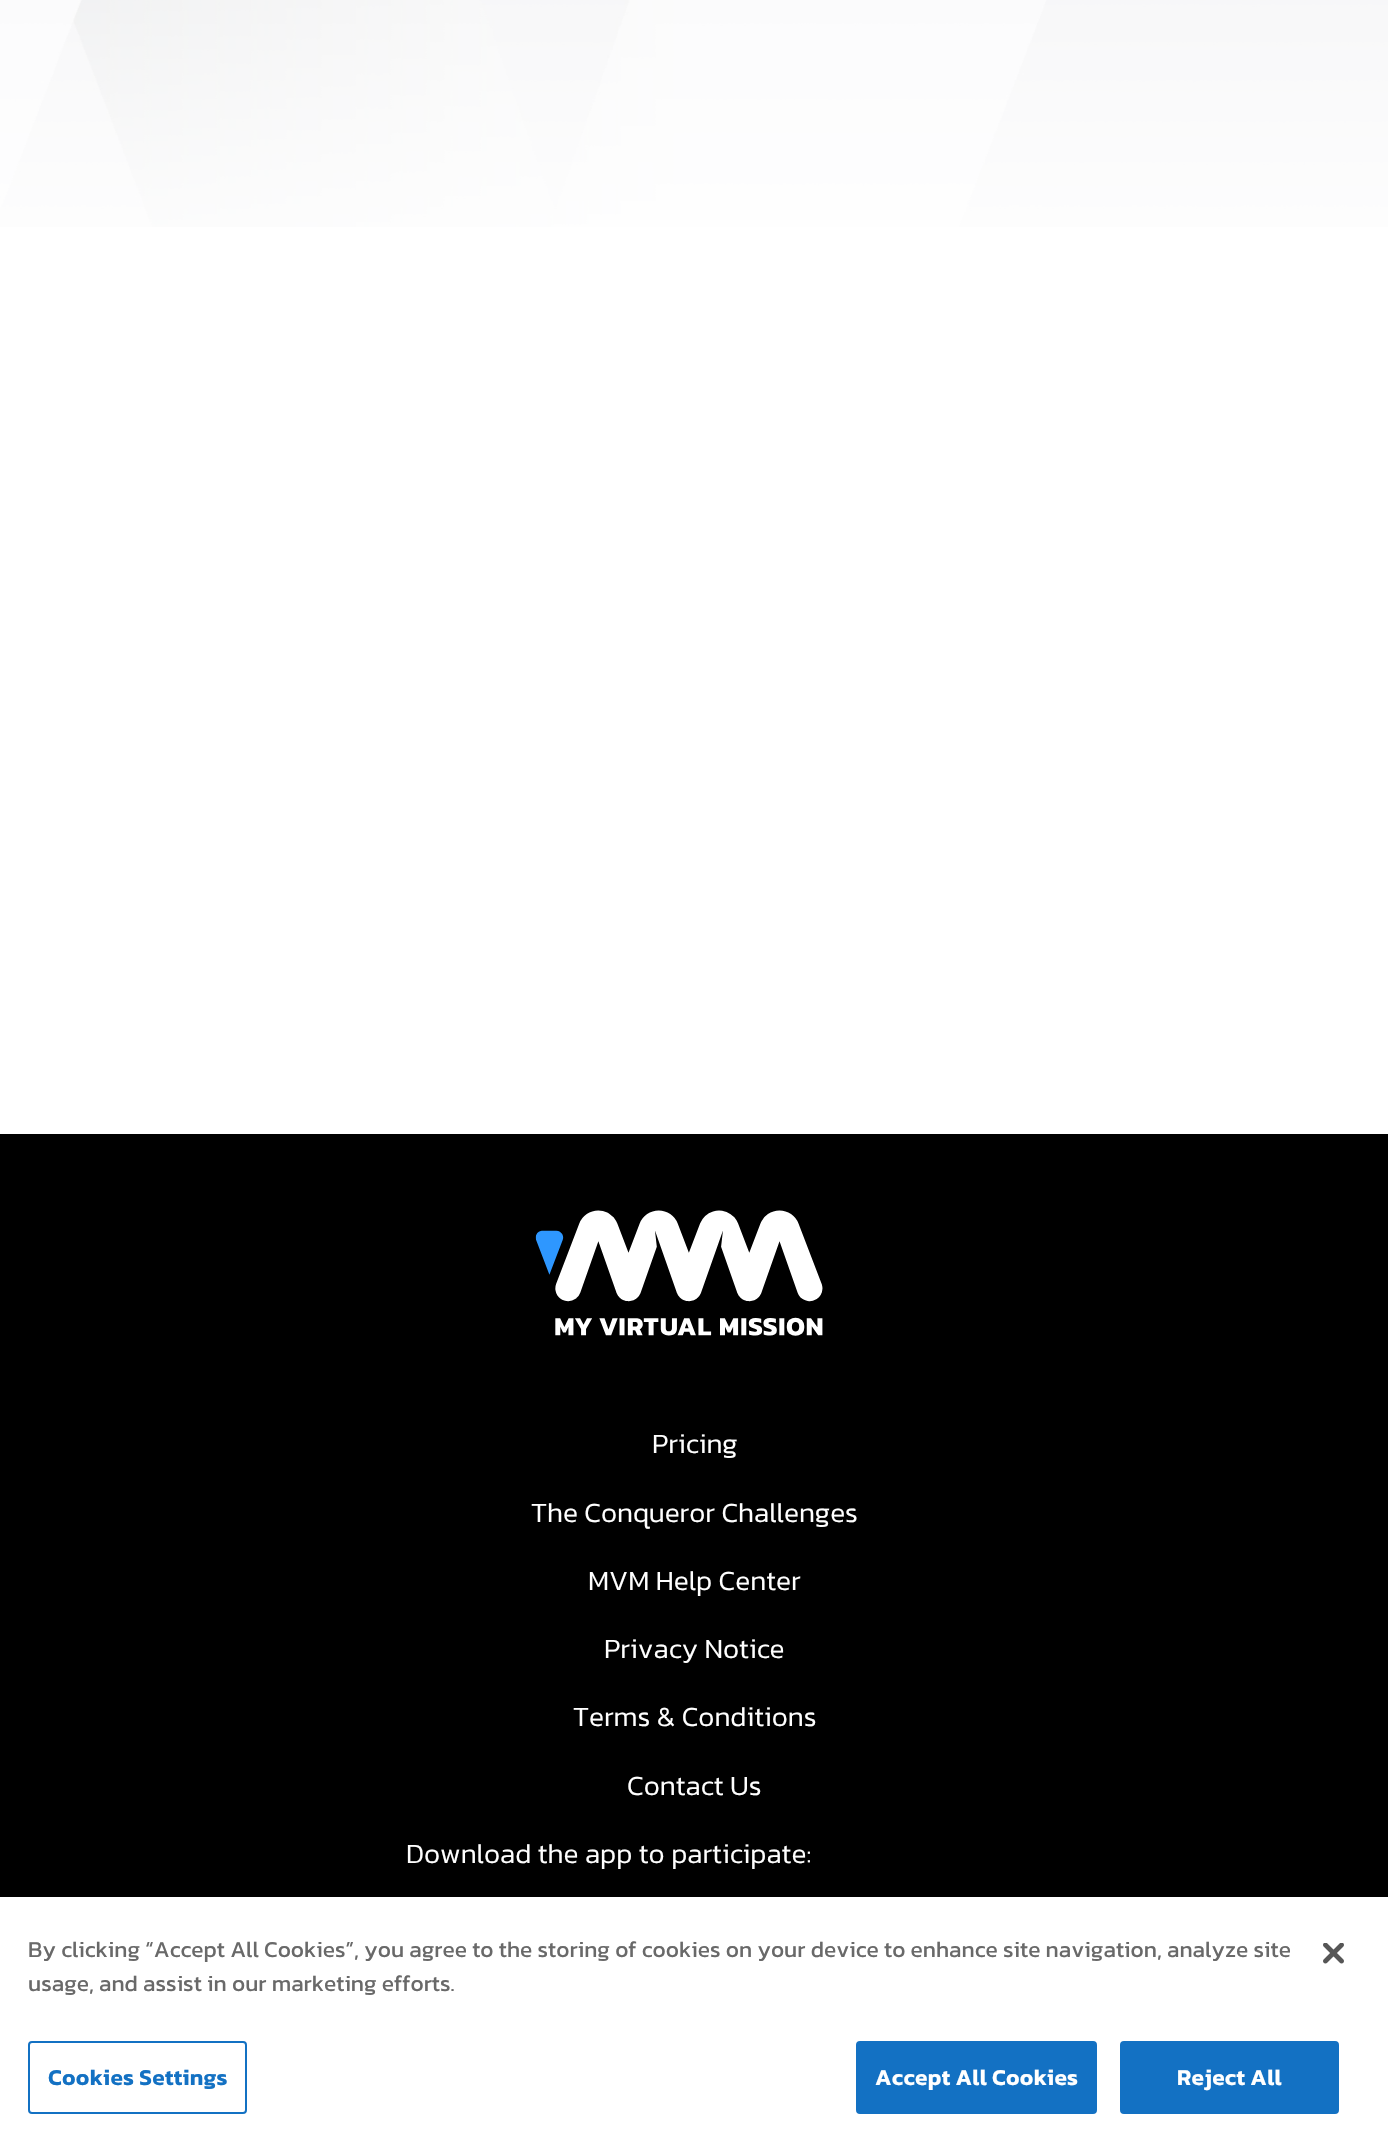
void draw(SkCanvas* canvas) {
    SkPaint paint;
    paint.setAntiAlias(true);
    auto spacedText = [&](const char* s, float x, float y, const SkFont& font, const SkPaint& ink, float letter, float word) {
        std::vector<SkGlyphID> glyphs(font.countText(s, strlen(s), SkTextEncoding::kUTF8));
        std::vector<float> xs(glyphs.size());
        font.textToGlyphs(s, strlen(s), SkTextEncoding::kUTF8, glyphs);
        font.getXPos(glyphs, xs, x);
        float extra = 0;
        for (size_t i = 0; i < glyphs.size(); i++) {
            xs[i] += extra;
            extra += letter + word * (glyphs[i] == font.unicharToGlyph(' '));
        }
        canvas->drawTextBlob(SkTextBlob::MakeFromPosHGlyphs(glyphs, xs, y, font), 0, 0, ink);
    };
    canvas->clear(0xFFFFFFFF);
    canvas->drawImageRect(SkImages::DeferredFromEncodedData(SkData::MakeFromFileName("img1.png")), SkRect::MakeXYWH(0, 0, 1388, 227), SkSamplingOptions());
    paint.setColor(0xFF000000);
    canvas->drawRect(SkRect::MakeXYWH(0, 1134, 1388, 763), paint);
    canvas->drawImageRect(SkImages::DeferredFromEncodedData(SkData::MakeFromFileName("img2.png")), SkRect::MakeXYWH(535, 1210, 288, 126), SkSamplingOptions());
    SkFont font1(fontMgr->matchFamilyStyle("Kanit", SkFontStyle(300, SkFontStyle::kNormal_Width, SkFontStyle::kUpright_Slant)), 28);
    font1.setSubpixel(true);
    paint.setColor(0xFFFFFFFF);
    canvas->drawString("Pricing", 652, 1453, font1, paint);
    canvas->drawString("The Conqueror Challenges", 531, 1522, font1, paint);
    canvas->drawString("MVM Help Center", 588, 1590, font1, paint);
    canvas->drawString("Privacy Notice", 604, 1658, font1, paint);
    canvas->drawString("Terms & Conditions", 573, 1726, font1, paint);
    canvas->drawString("Contact Us", 627, 1795, font1, paint);
    canvas->drawString("Download the app to participate:", 406, 1863, font1, paint);
    paint.setColor(0x33000000);
    paint.setMaskFilter(SkMaskFilter::MakeBlur(kNormal_SkBlurStyle, 16));
    canvas->drawRect(SkRect::MakeXYWH(0, 1897, 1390, 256), paint);
    paint.setMaskFilter(nullptr);
    paint.setColor(0xFFFFFFFF);
    canvas->drawRect(SkRect::MakeXYWH(0, 1897, 1388, 255), paint);
    SkFont font2(fontMgr->matchFamilyStyle("Kanit", SkFontStyle::Normal()), 22.75f);
    font2.setSubpixel(true);
    paint.setColor(0xFF696969);
    canvas->drawString("By clicking “Accept All Cookies”, you agree to the storing of cookies on your device to enhance site navigation, analyze site", 28, 1957, font2, paint);
    canvas->drawString("usage, and assist in our marketing efforts.", 28, 1991, font2, paint);
    paint.setStyle(SkPaint::kStroke_Style);
    paint.setStrokeWidth(2);
    paint.setColor(0xFF1371C3);
    canvas->drawRoundRect(SkRect::MakeXYWH(29, 2042, 217, 71), 3, 3, paint);
    SkFont font3(fontMgr->matchFamilyStyle("Kanit", SkFontStyle(600, SkFontStyle::kNormal_Width, SkFontStyle::kUpright_Slant)), 22.75f);
    font3.setSubpixel(true);
    paint.setStyle(SkPaint::kFill_Style);
    spacedText("Cookies Settings", 48, 2085, font3, paint, 0.25f, 0);
    canvas->drawRoundRect(SkRect::MakeXYWH(857, 2042, 239, 71), 3, 3, paint);
    paint.setStyle(SkPaint::kStroke_Style);
    canvas->drawRoundRect(SkRect::MakeXYWH(857, 2042, 239, 71), 3, 3, paint);
    paint.setStyle(SkPaint::kFill_Style);
    paint.setColor(0xFFFFFFFF);
    spacedText("Accept All Cookies", 875, 2085, font3, paint, 0.25f, 0);
    paint.setColor(0xFF1371C3);
    canvas->drawRoundRect(SkRect::MakeXYWH(1121, 2042, 217, 71), 3, 3, paint);
    paint.setStyle(SkPaint::kStroke_Style);
    canvas->drawRoundRect(SkRect::MakeXYWH(1121, 2042, 217, 71), 3, 3, paint);
    paint.setStyle(SkPaint::kFill_Style);
    paint.setColor(0xFFFFFFFF);
    spacedText("Reject All", 1177, 2085, font3, paint, 0.25f, 0);
    canvas->drawImageRect(SkImages::DeferredFromEncodedData(SkData::MakeFromFileName("img3.png")), SkRect::MakeXYWH(1323, 1943, 21, 21), SkSamplingOptions());
}
